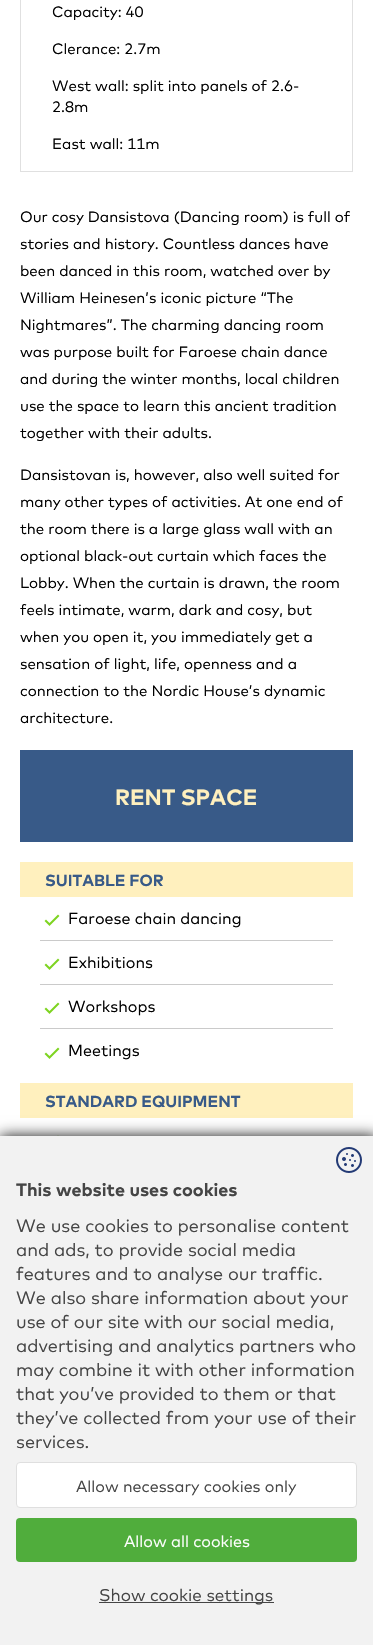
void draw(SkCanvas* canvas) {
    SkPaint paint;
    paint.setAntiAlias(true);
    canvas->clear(0xFFFFFFFF);
    paint.setStyle(SkPaint::kStroke_Style);
    paint.setStrokeWidth(1);
    paint.setColor(0xFFE0E0E0);
    canvas->drawRect(SkRect::MakeXYWH(20.5f, -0.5f, 332, 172), paint);
    SkFont font1(fontMgr->matchFamilyStyle("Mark", SkFontStyle::Normal()), 15);
    font1.setSubpixel(true);
    paint.setStyle(SkPaint::kFill_Style);
    paint.setColor(0xFF000000);
    canvas->drawString("Capacity: 40", 52, 17, font1, paint);
    canvas->drawString("Clerance: 2.7m", 52, 54, font1, paint);
    canvas->drawString("West wall: split into panels of 2.6-", 52, 91, font1, paint);
    canvas->drawString("2.8m", 52, 112, font1, paint);
    canvas->drawString("East wall: 11m", 52, 149, font1, paint);
    canvas->drawString("Our cosy Dansistova (Dancing room) is full of", 20, 222, font1, paint);
    canvas->drawString("stories and history. Countless dances have", 20, 249, font1, paint);
    canvas->drawString("been danced in this room, watched over by", 20, 276, font1, paint);
    canvas->drawString("William Heinesen’s iconic picture “The", 20, 303, font1, paint);
    canvas->drawString("Nightmares”. The charming dancing room", 20, 330, font1, paint);
    canvas->drawString("was purpose built for Faroese chain dance", 20, 357, font1, paint);
    canvas->drawString("and during the winter months, local children", 20, 384, font1, paint);
    canvas->drawString("use the space to learn this ancient tradition", 20, 411, font1, paint);
    canvas->drawString("together with their adults.", 20, 438, font1, paint);
    canvas->drawString("Dansistovan is, however, also well suited for", 20, 480, font1, paint);
    canvas->drawString("many other types of activities. At one end of", 20, 507, font1, paint);
    canvas->drawString("the room there is a large glass wall with an", 20, 534, font1, paint);
    canvas->drawString("optional black-out curtain which faces the", 20, 561, font1, paint);
    canvas->drawString("Lobby. When the curtain is drawn, the room", 20, 588, font1, paint);
    canvas->drawString("feels intimate, warm, dark and cosy, but", 20, 615, font1, paint);
    canvas->drawString("when you open it, you immediately get a", 20, 642, font1, paint);
    canvas->drawString("sensation of light, life, openness and a", 20, 669, font1, paint);
    canvas->drawString("connection to the Nordic House’s dynamic", 20, 696, font1, paint);
    canvas->drawString("architecture.", 20, 723, font1, paint);
    paint.setColor(0xFF385A88);
    canvas->drawRect(SkRect::MakeXYWH(20, 750, 333, 92), paint);
    SkFont font2(fontMgr->matchFamilyStyle("Mark", SkFontStyle::Bold()), 22);
    font2.setSubpixel(true);
    paint.setColor(0xFFFFF0BE);
    canvas->drawString("RENT SPACE", 115, 805, font2, paint);
    canvas->drawRect(SkRect::MakeXYWH(20, 862, 333, 35), paint);
    SkFont font3(fontMgr->matchFamilyStyle("Mark", SkFontStyle::Bold()), 16);
    font3.setSubpixel(true);
    paint.setColor(0xFF385A88);
    canvas->drawString("SUITABLE FOR", 45, 886, font3, paint);
    paint.setColor(0xFFCACACA);
    canvas->drawRect(SkRect::MakeXYWH(40, 940, 293, 1), paint);
    canvas->drawImageRect(SkImages::DeferredFromEncodedData(SkData::MakeFromFileName("img1.png")), SkRect::MakeXYWH(44, 914, 16, 12), SkSamplingOptions());
    SkFont font4(fontMgr->matchFamilyStyle("Mark", SkFontStyle::Normal()), 16);
    font4.setSubpixel(true);
    paint.setColor(0xFF000000);
    canvas->drawString("Faroese chain dancing", 68, 924, font4, paint);
    paint.setColor(0xFFCACACA);
    canvas->drawRect(SkRect::MakeXYWH(40, 984, 293, 1), paint);
    canvas->drawImageRect(SkImages::DeferredFromEncodedData(SkData::MakeFromFileName("img1.png")), SkRect::MakeXYWH(44, 958, 16, 12), SkSamplingOptions());
    paint.setColor(0xFF000000);
    canvas->drawString("Exhibitions", 68, 968, font4, paint);
    paint.setColor(0xFFCACACA);
    canvas->drawRect(SkRect::MakeXYWH(40, 1028, 293, 1), paint);
    canvas->drawImageRect(SkImages::DeferredFromEncodedData(SkData::MakeFromFileName("img1.png")), SkRect::MakeXYWH(44, 1002, 16, 12), SkSamplingOptions());
    paint.setColor(0xFF000000);
    canvas->drawString("Workshops", 68, 1012, font4, paint);
    canvas->drawImageRect(SkImages::DeferredFromEncodedData(SkData::MakeFromFileName("img1.png")), SkRect::MakeXYWH(44, 1047, 16, 12), SkSamplingOptions());
    canvas->drawString("Meetings", 68, 1056, font4, paint);
    paint.setColor(0xFFFFF0BE);
    canvas->drawRect(SkRect::MakeXYWH(20, 1083, 333, 35), paint);
    paint.setColor(0xFF385A88);
    canvas->drawString("STANDARD EQUIPMENT", 45, 1107, font3, paint);
    canvas->drawImageRect(SkImages::DeferredFromEncodedData(SkData::MakeFromFileName("img2.png")), SkRect::MakeXYWH(57, 1135, 2, 1), SkSamplingOptions());
    paint.setColor(0xFF121212);
    paint.setMaskFilter(SkMaskFilter::MakeBlur(kNormal_SkBlurStyle, 7));
    canvas->drawRect(SkRect::MakeXYWH(0, 1136, 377, 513), paint);
    paint.setMaskFilter(nullptr);
    paint.setColor(0xFFF2F2F2);
    canvas->drawRect(SkRect::MakeXYWH(0, 1136, 373, 509), paint);
    canvas->drawImageRect(SkImages::DeferredFromEncodedData(SkData::MakeFromFileName("img3.png")), SkRect::MakeXYWH(336, 1147, 26, 26), SkSamplingOptions());
    SkFont font5(fontMgr->matchFamilyStyle("Mark", SkFontStyle::Bold()), 18);
    font5.setSubpixel(true);
    paint.setColor(0xFF454545);
    canvas->drawString("This website uses cookies", 16, 1196, font5, paint);
    SkFont font6(fontMgr->matchFamilyStyle("Mark", SkFontStyle::Normal()), 18);
    font6.setSubpixel(true);
    canvas->drawString("We use cookies to personalise content", 16, 1232, font6, paint);
    canvas->drawString("and ads, to provide social media", 16, 1256, font6, paint);
    canvas->drawString("features and to analyse our traffic.", 16, 1280, font6, paint);
    canvas->drawString("We also share information about your", 16, 1304, font6, paint);
    canvas->drawString("use of our site with our social media,", 16, 1328, font6, paint);
    canvas->drawString("advertising and analytics partners who", 16, 1352, font6, paint);
    canvas->drawString("may combine it with other information", 16, 1376, font6, paint);
    canvas->drawString("that you’ve provided to them or that", 16, 1400, font6, paint);
    canvas->drawString("they’ve collected from your use of their", 16, 1424, font6, paint);
    canvas->drawString("services.", 16, 1448, font6, paint);
    paint.setColor(0xFFFFFFFF);
    canvas->drawRoundRect(SkRect::MakeXYWH(16.5f, 1462.5f, 340, 45), 3.5f, 3.5f, paint);
    paint.setStyle(SkPaint::kStroke_Style);
    paint.setColor(0xFFDFDFDF);
    canvas->drawRoundRect(SkRect::MakeXYWH(16.5f, 1462.5f, 340, 45), 3.5f, 3.5f, paint);
    paint.setStyle(SkPaint::kFill_Style);
    paint.setColor(0xFF454545);
    canvas->drawString("Allow necessary cookies only", 76, 1492, font4, paint);
    paint.setColor(0xFF50AD3C);
    canvas->drawRoundRect(SkRect::MakeXYWH(16, 1518, 341, 44), 4, 4, paint);
    paint.setColor(0xFFFFFFFF);
    canvas->drawString("Allow all cookies", 124, 1547, font4, paint);
    paint.setColor(0xFF454545);
    canvas->drawRect(SkRect::MakeXYWH(99, 1602, 175, 1), paint);
    SkFont font7(fontMgr->matchFamilyStyle("Mark", SkFontStyle::Normal()), 17);
    font7.setSubpixel(true);
    canvas->drawString("Show cookie settings", 99, 1601, font7, paint);
}
